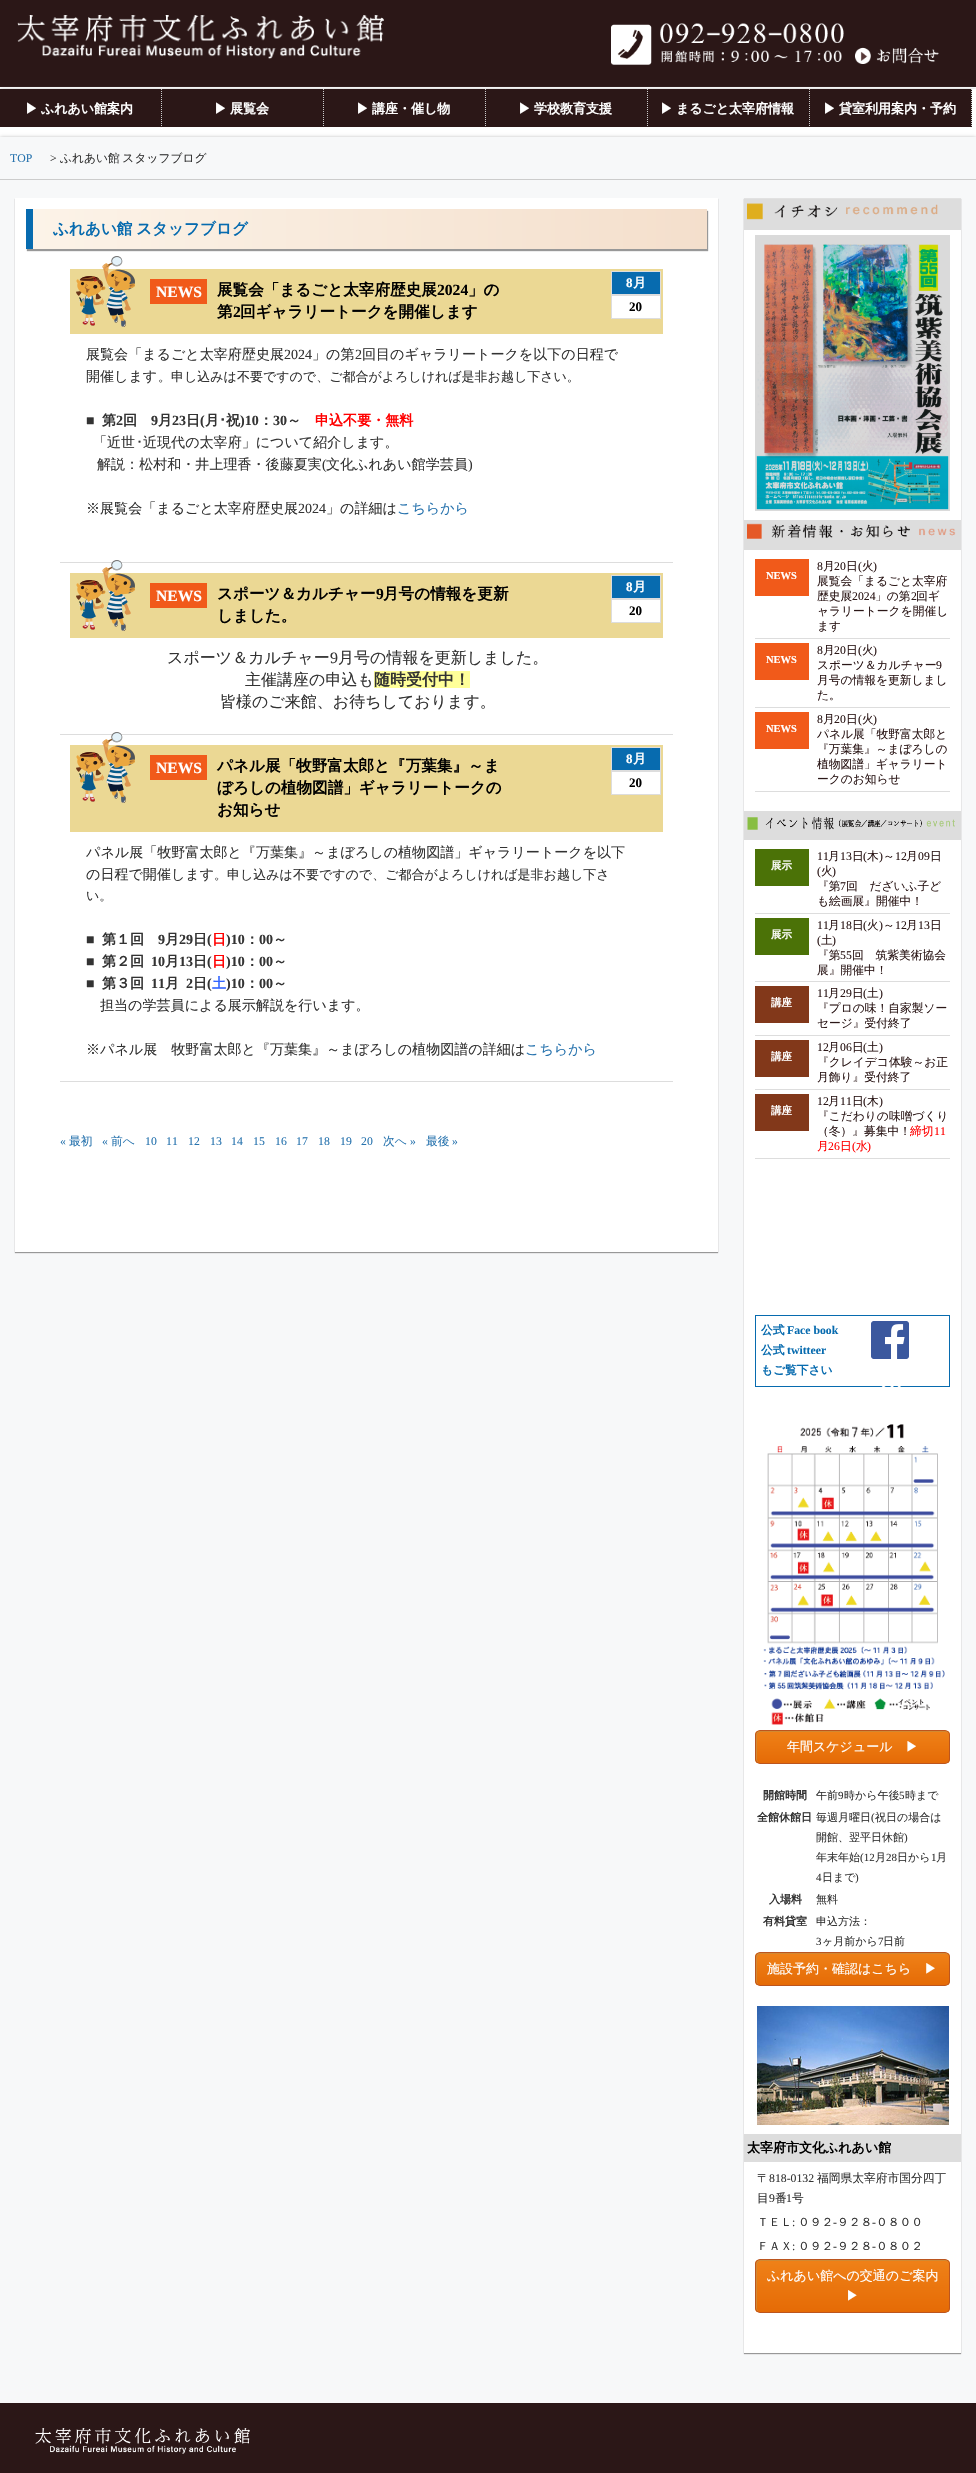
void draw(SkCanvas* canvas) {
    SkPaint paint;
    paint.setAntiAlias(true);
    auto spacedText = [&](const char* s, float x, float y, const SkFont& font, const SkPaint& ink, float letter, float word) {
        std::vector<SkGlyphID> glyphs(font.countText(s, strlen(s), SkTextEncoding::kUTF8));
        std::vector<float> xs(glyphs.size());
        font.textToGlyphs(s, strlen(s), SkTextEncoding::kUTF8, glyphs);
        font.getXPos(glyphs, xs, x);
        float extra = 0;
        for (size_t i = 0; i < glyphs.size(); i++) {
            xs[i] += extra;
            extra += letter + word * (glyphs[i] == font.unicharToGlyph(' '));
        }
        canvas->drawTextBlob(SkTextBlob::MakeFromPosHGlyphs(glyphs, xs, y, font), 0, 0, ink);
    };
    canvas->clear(0xFFFFFFFF);
    paint.setColor(0xFF2B1717);
    canvas->drawRect(SkRect::MakeXYWH(0, 0, 976, 87), paint);
    canvas->drawImageRect(SkImages::DeferredFromEncodedData(SkData::MakeFromFileName("img1.png")), SkRect::MakeXYWH(17, 15, 367, 44), SkSamplingOptions());
    canvas->drawImageRect(SkImages::DeferredFromEncodedData(SkData::MakeFromFileName("img2.png")), SkRect::MakeXYWH(611, 23, 233, 42), SkSamplingOptions());
    canvas->drawImageRect(SkImages::DeferredFromEncodedData(SkData::MakeFromFileName("img3.png")), SkRect::MakeXYWH(855, 47, 84, 17), SkSamplingOptions());
    canvas->save();
    canvas->clipRect(SkRect::MakeXYWH(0, 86, 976, 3));
    paint.setColor(0xFF989898);
    paint.setMaskFilter(SkMaskFilter::MakeBlur(kNormal_SkBlurStyle, 2));
    canvas->drawRect(SkRect::MakeXYWH(0, 90, 976, 48), paint);
    paint.setMaskFilter(nullptr);
    canvas->restore();
    paint.setColor(0xFF2B1717);
    canvas->drawRect(SkRect::MakeXYWH(0, 89, 810, 38), paint);
    paint.setStyle(SkPaint::kStroke_Style);
    paint.setStrokeWidth(1);
    paint.setColor(0xFFCCCCCC);
    paint.setPathEffect(SkDashPathEffect::Make({{1, 1}}, 0));
    canvas->drawPath(SkPathBuilder().moveTo(161.5f, 89).lineTo(161.5f, 127).detach(), paint);
    paint.setPathEffect(nullptr);
    SkFont font1(fontMgr->matchFamilyStyle("WenQuanYi Zen Hei", SkFontStyle::Bold()), 13);
    font1.setSubpixel(true);
    paint.setStyle(SkPaint::kFill_Style);
    paint.setColor(0xFFFFFFFF);
    spacedText("▶ ふれあい館案内", 25, 113, font1, paint, 0, -1);
    paint.setStyle(SkPaint::kStroke_Style);
    paint.setColor(0xFFCCCCCC);
    paint.setPathEffect(SkDashPathEffect::Make({{1, 1}}, 0));
    canvas->drawPath(SkPathBuilder().moveTo(323.5f, 89).lineTo(323.5f, 127).detach(), paint);
    paint.setPathEffect(nullptr);
    paint.setStyle(SkPaint::kFill_Style);
    paint.setColor(0xFFFFFFFF);
    spacedText("▶ 展覧会", 214, 113, font1, paint, 0, -1);
    paint.setStyle(SkPaint::kStroke_Style);
    paint.setColor(0xFFCCCCCC);
    paint.setPathEffect(SkDashPathEffect::Make({{1, 1}}, 0));
    canvas->drawPath(SkPathBuilder().moveTo(485.5f, 89).lineTo(485.5f, 127).detach(), paint);
    paint.setPathEffect(nullptr);
    paint.setStyle(SkPaint::kFill_Style);
    paint.setColor(0xFFFFFFFF);
    spacedText("▶ 講座・催し物", 356, 113, font1, paint, 0, -1);
    paint.setStyle(SkPaint::kStroke_Style);
    paint.setColor(0xFFCCCCCC);
    paint.setPathEffect(SkDashPathEffect::Make({{1, 1}}, 0));
    canvas->drawPath(SkPathBuilder().moveTo(647.5f, 89).lineTo(647.5f, 127).detach(), paint);
    paint.setPathEffect(nullptr);
    paint.setStyle(SkPaint::kFill_Style);
    paint.setColor(0xFFFFFFFF);
    spacedText("▶ 学校教育支援", 518, 113, font1, paint, 0, -1);
    paint.setStyle(SkPaint::kStroke_Style);
    paint.setColor(0xFFCCCCCC);
    paint.setPathEffect(SkDashPathEffect::Make({{1, 1}}, 0));
    canvas->drawPath(SkPathBuilder().moveTo(809.5f, 89).lineTo(809.5f, 127).detach(), paint);
    paint.setPathEffect(nullptr);
    paint.setStyle(SkPaint::kFill_Style);
    paint.setColor(0xFFFFFFFF);
    spacedText("▶ まるごと太宰府情報", 660, 113, font1, paint, 0, -1);
    paint.setColor(0xFF2B1717);
    canvas->drawRect(SkRect::MakeXYWH(810, 89, 162, 38), paint);
    paint.setStyle(SkPaint::kStroke_Style);
    paint.setColor(0xFFCCCCCC);
    paint.setPathEffect(SkDashPathEffect::Make({{1, 1}}, 0));
    canvas->drawPath(SkPathBuilder().moveTo(971.5f, 89).lineTo(971.5f, 127).detach(), paint);
    paint.setPathEffect(nullptr);
    paint.setStyle(SkPaint::kFill_Style);
    paint.setColor(0xFFFFFFFF);
    spacedText("▶ 貸室利用案内・予約", 823, 113, font1, paint, 0, -1);
    paint.setColor(0xFF989898);
    paint.setMaskFilter(SkMaskFilter::MakeBlur(kNormal_SkBlurStyle, 2));
    canvas->drawRect(SkRect::MakeXYWH(0, 138, 976, 2266), paint);
    paint.setMaskFilter(nullptr);
    paint.setColor(0xFFF7F8F9);
    canvas->drawRect(SkRect::MakeXYWH(0, 137, 976, 2266), paint);
    paint.setColor(0xFFCCCCCC);
    canvas->drawRect(SkRect::MakeXYWH(0, 179, 976, 1), paint);
    SkFont font2(fontMgr->matchFamilyStyle("Liberation Serif", SkFontStyle::Normal()), 11.75f);
    font2.setSubpixel(true);
    paint.setColor(0xFF2773AE);
    canvas->drawString("TOP", 10, 162, font2, paint);
    paint.setColor(0xFF333333);
    canvas->drawString(">", 50, 162, font2, paint);
    SkFont font3(fontMgr->matchFamilyStyle("WenQuanYi Zen Hei", SkFontStyle(500, SkFontStyle::kNormal_Width, SkFontStyle::kUpright_Slant)), 11.75f);
    font3.setSubpixel(true);
    spacedText("ふれあい館 スタッフブログ", 60, 162, font3, paint, 0, -1);
    paint.setColor(0xFF989898);
    paint.setMaskFilter(SkMaskFilter::MakeBlur(kNormal_SkBlurStyle, 0.5f));
    canvas->drawRect(SkRect::MakeXYWH(15, 199, 703, 1054), paint);
    paint.setMaskFilter(nullptr);
    paint.setColor(0xFFFFFFFF);
    canvas->drawRect(SkRect::MakeXYWH(15, 198, 703, 1054), paint);
    paint.setColor(0xFF989898);
    paint.setMaskFilter(SkMaskFilter::MakeBlur(kNormal_SkBlurStyle, 0.5f));
    canvas->drawRect(SkRect::MakeXYWH(27, 211, 681, 40), paint);
    paint.setMaskFilter(nullptr);
    {
        const SkColor colors[] = {0xFFFCF3E8, 0xFFF4DFCC};
        const float stops[] = {0, 1};
        const SkPoint ends[] = {{33, 229}, {707, 229}};
        paint.setShader(SkGradientShader::MakeLinear(ends, colors, stops, 2, SkTileMode::kClamp));
        paint.setAlpha(255);
    }
    canvas->drawRect(SkRect::MakeXYWH(33, 209, 674, 40), paint);
    paint.setShader(nullptr);
    paint.setColor(0xFF076BAF);
    canvas->drawRect(SkRect::MakeXYWH(26, 209, 7, 40), paint);
    SkFont font4(fontMgr->matchFamilyStyle("WenQuanYi Zen Hei", SkFontStyle::Bold()), 15.6f);
    font4.setSubpixel(true);
    spacedText("ふれあい館 スタッフブログ", 53, 234, font4, paint, 0, -1);
    paint.setColor(0xFFDDDDDD);
    canvas->drawRect(SkRect::MakeXYWH(60, 562, 613, 1), paint);
    paint.setColor(0xFFEBD894);
    canvas->drawRect(SkRect::MakeXYWH(70, 269, 593, 65), paint);
    canvas->drawImageRect(SkImages::DeferredFromEncodedData(SkData::MakeFromFileName("img4.png")), SkRect::MakeXYWH(76, 256, 59, 71), SkSamplingOptions());
    paint.setColor(0xFFF15A1A);
    canvas->drawRect(SkRect::MakeXYWH(150, 279, 57, 25), paint);
    SkFont font5(fontMgr->matchFamilyStyle("Liberation Serif", SkFontStyle::Bold()), 15.6f);
    font5.setSubpixel(true);
    paint.setColor(0xFFFFFFFF);
    canvas->drawString("NEWS", 156, 297, font5, paint);
    paint.setColor(0xFF000000);
    canvas->drawString("展覧会「まるごと太宰府歴史展", 217, 295, font4, paint);
    canvas->drawString("2024", 437, 295, font5, paint);
    canvas->drawString("」の", 468, 295, font4, paint);
    canvas->drawString("第", 217, 317, font4, paint);
    canvas->drawString("2", 233, 317, font5, paint);
    canvas->drawString("回ギャラリートークを開催します", 240, 317, font4, paint);
    paint.setColor(0xFF076BAF);
    canvas->drawRect(SkRect::MakeXYWH(611.5f, 271.5f, 49, 23), paint);
    paint.setStyle(SkPaint::kStroke_Style);
    paint.setColor(0xFFDDDDDD);
    canvas->drawRect(SkRect::MakeXYWH(611.5f, 271.5f, 49, 23), paint);
    SkFont font6(fontMgr->matchFamilyStyle("Liberation Serif", SkFontStyle::Bold()), 13);
    font6.setSubpixel(true);
    paint.setStyle(SkPaint::kFill_Style);
    paint.setColor(0xFFFFFFFF);
    canvas->drawString("8", 626, 287, font6, paint);
    canvas->drawString("月", 633, 287, font1, paint);
    canvas->drawRect(SkRect::MakeXYWH(611.5f, 295.5f, 49, 23), paint);
    paint.setStyle(SkPaint::kStroke_Style);
    paint.setColor(0xFFDDDDDD);
    canvas->drawRect(SkRect::MakeXYWH(611.5f, 295.5f, 49, 23), paint);
    paint.setStyle(SkPaint::kFill_Style);
    paint.setColor(0xFF000000);
    canvas->drawString("20", 629, 311, font6, paint);
    SkFont font7(fontMgr->matchFamilyStyle("WenQuanYi Zen Hei", SkFontStyle(500, SkFontStyle::kNormal_Width, SkFontStyle::kUpright_Slant)), 14.05f);
    font7.setSubpixel(true);
    paint.setColor(0xFF333333);
    canvas->drawString("展覧会「まるごと太宰府歴史展", 86, 359, font7, paint);
    SkFont font8(fontMgr->matchFamilyStyle("Liberation Serif", SkFontStyle::Normal()), 14.05f);
    font8.setSubpixel(true);
    canvas->drawString("2024", 284, 359, font8, paint);
    canvas->drawString("」の第", 312, 359, font7, paint);
    canvas->drawString("2", 355, 359, font8, paint);
    canvas->drawString("回目のギャラリートークを以下の日程で", 362, 359, font7, paint);
    canvas->drawString("開催します", 86, 381, font7, paint);
    SkFont font9(fontMgr->matchFamilyStyle("WenQuanYi Zen Hei", SkFontStyle(500, SkFontStyle::kNormal_Width, SkFontStyle::kUpright_Slant)), 13);
    font9.setSubpixel(true);
    canvas->drawString("。申し込みは不要ですので、ご都合がよろしければ是非お越し下さい。", 158, 381, font9, paint);
    SkFont font10(fontMgr->matchFamilyStyle("Liberation Serif", SkFontStyle::Bold()), 14.05f);
    font10.setSubpixel(true);
    canvas->drawString("■", 86, 425, font10, paint);
    SkFont font11(fontMgr->matchFamilyStyle("WenQuanYi Zen Hei", SkFontStyle::Bold()), 14.05f);
    font11.setSubpixel(true);
    canvas->drawString("第", 102, 425, font11, paint);
    canvas->drawString("2", 116, 425, font10, paint);
    canvas->drawString("回", 123, 425, font11, paint);
    canvas->drawString("9", 151, 425, font10, paint);
    canvas->drawString("月", 158, 425, font11, paint);
    canvas->drawString("23", 172, 425, font10, paint);
    canvas->drawString("日", 186, 425, font11, paint);
    canvas->drawString("(", 200, 425, font10, paint);
    canvas->drawString("月", 205, 425, font11, paint);
    SkFont font12(fontMgr->matchFamilyStyle("IPAPGothic", SkFontStyle::Bold()), 14.05f);
    font12.setSubpixel(true);
    canvas->drawString("･", 219, 425, font12, paint);
    canvas->drawString("祝", 226, 425, font11, paint);
    canvas->drawString(")10", 240, 425, font10, paint);
    canvas->drawString("：", 259, 425, font11, paint);
    canvas->drawString("30", 273, 425, font10, paint);
    canvas->drawString("～", 287, 425, font11, paint);
    paint.setColor(0xFFFF0000);
    canvas->drawString("申込不要・無料", 315, 425, font11, paint);
    paint.setColor(0xFF333333);
    canvas->drawString("「近世", 93, 447, font7, paint);
    SkFont font13(fontMgr->matchFamilyStyle("IPAPGothic", SkFontStyle::Normal()), 14.05f);
    font13.setSubpixel(true);
    canvas->drawString("･", 136, 447, font13, paint);
    canvas->drawString("近現代の太宰府」について紹介します。", 143, 447, font7, paint);
    canvas->drawString("解説：松村和・井上理香・後藤夏実", 97, 469, font7, paint);
    canvas->drawString("(", 322, 469, font8, paint);
    canvas->drawString("文化ふれあい館学芸員", 326, 469, font7, paint);
    canvas->drawString(")", 468, 469, font8, paint);
    canvas->drawString("※展覧会「まるごと太宰府歴史展", 86, 513, font7, paint);
    canvas->drawString("2024", 298, 513, font8, paint);
    canvas->drawString("」の詳細は", 326, 513, font7, paint);
    paint.setColor(0xFF2773AE);
    canvas->drawString("こちらから", 397, 513, font7, paint);
    paint.setColor(0xFFDDDDDD);
    canvas->drawRect(SkRect::MakeXYWH(60, 734, 613, 1), paint);
    paint.setColor(0xFFEBD894);
    canvas->drawRect(SkRect::MakeXYWH(70, 573, 593, 65), paint);
    canvas->drawImageRect(SkImages::DeferredFromEncodedData(SkData::MakeFromFileName("img5.png")), SkRect::MakeXYWH(76, 560, 59, 71), SkSamplingOptions());
    paint.setColor(0xFFF15A1A);
    canvas->drawRect(SkRect::MakeXYWH(150, 583, 57, 25), paint);
    paint.setColor(0xFFFFFFFF);
    canvas->drawString("NEWS", 156, 601, font5, paint);
    paint.setColor(0xFF000000);
    canvas->drawString("スポーツ＆カルチャー", 217, 599, font4, paint);
    canvas->drawString("9", 376, 599, font5, paint);
    canvas->drawString("月号の情報を更新", 383, 599, font4, paint);
    canvas->drawString("しました。", 217, 621, font4, paint);
    paint.setColor(0xFF076BAF);
    canvas->drawRect(SkRect::MakeXYWH(611.5f, 575.5f, 49, 23), paint);
    paint.setStyle(SkPaint::kStroke_Style);
    paint.setColor(0xFFDDDDDD);
    canvas->drawRect(SkRect::MakeXYWH(611.5f, 575.5f, 49, 23), paint);
    paint.setStyle(SkPaint::kFill_Style);
    paint.setColor(0xFFFFFFFF);
    canvas->drawString("8", 626, 591, font6, paint);
    canvas->drawString("月", 633, 591, font1, paint);
    canvas->drawRect(SkRect::MakeXYWH(611.5f, 599.5f, 49, 23), paint);
    paint.setStyle(SkPaint::kStroke_Style);
    paint.setColor(0xFFDDDDDD);
    canvas->drawRect(SkRect::MakeXYWH(611.5f, 599.5f, 49, 23), paint);
    paint.setStyle(SkPaint::kFill_Style);
    paint.setColor(0xFF000000);
    canvas->drawString("20", 629, 615, font6, paint);
    SkFont font14(fontMgr->matchFamilyStyle("WenQuanYi Zen Hei", SkFontStyle(500, SkFontStyle::kNormal_Width, SkFontStyle::kUpright_Slant)), 16);
    font14.setSubpixel(true);
    paint.setColor(0xFF333333);
    canvas->drawString("スポーツ＆カルチャー", 167, 663, font14, paint);
    SkFont font15(fontMgr->matchFamilyStyle("Liberation Serif", SkFontStyle::Normal()), 16);
    font15.setSubpixel(true);
    canvas->drawString("9", 330, 663, font15, paint);
    canvas->drawString("月号の情報を更新しました。", 338, 663, font14, paint);
    canvas->drawString("主催講座の申込も", 245, 685, font14, paint);
    paint.setColor(0xFFFFFF99);
    canvas->drawRect(SkRect::MakeXYWH(374, 671, 96, 17), paint);
    SkFont font16(fontMgr->matchFamilyStyle("WenQuanYi Zen Hei", SkFontStyle::Bold()), 16);
    font16.setSubpixel(true);
    paint.setColor(0xFF333333);
    canvas->drawString("随時受付中！", 374, 685, font16, paint);
    canvas->drawString("皆様のご来館、お待ちしております。", 220, 707, font14, paint);
    paint.setColor(0xFFDDDDDD);
    canvas->drawRect(SkRect::MakeXYWH(60, 1081, 613, 1), paint);
    paint.setColor(0xFFEBD894);
    canvas->drawRect(SkRect::MakeXYWH(70, 745, 593, 87), paint);
    canvas->drawImageRect(SkImages::DeferredFromEncodedData(SkData::MakeFromFileName("img5.png")), SkRect::MakeXYWH(76, 732, 59, 71), SkSamplingOptions());
    paint.setColor(0xFFF15A1A);
    canvas->drawRect(SkRect::MakeXYWH(150, 755, 57, 25), paint);
    paint.setColor(0xFFFFFFFF);
    canvas->drawString("NEWS", 156, 773, font5, paint);
    paint.setColor(0xFF000000);
    canvas->drawString("パネル展「牧野富太郎と『万葉集』～ま", 217, 771, font4, paint);
    canvas->drawString("ぼろしの植物図譜」ギャラリートークの", 217, 793, font4, paint);
    canvas->drawString("お知らせ", 217, 815, font4, paint);
    paint.setColor(0xFF076BAF);
    canvas->drawRect(SkRect::MakeXYWH(611.5f, 747.5f, 49, 23), paint);
    paint.setStyle(SkPaint::kStroke_Style);
    paint.setColor(0xFFDDDDDD);
    canvas->drawRect(SkRect::MakeXYWH(611.5f, 747.5f, 49, 23), paint);
    paint.setStyle(SkPaint::kFill_Style);
    paint.setColor(0xFFFFFFFF);
    canvas->drawString("8", 626, 763, font6, paint);
    canvas->drawString("月", 633, 763, font1, paint);
    canvas->drawRect(SkRect::MakeXYWH(611.5f, 771.5f, 49, 23), paint);
    paint.setStyle(SkPaint::kStroke_Style);
    paint.setColor(0xFFDDDDDD);
    canvas->drawRect(SkRect::MakeXYWH(611.5f, 771.5f, 49, 23), paint);
    paint.setStyle(SkPaint::kFill_Style);
    paint.setColor(0xFF000000);
    canvas->drawString("20", 629, 787, font6, paint);
    paint.setColor(0xFF333333);
    canvas->drawString("パネル展「牧野富太郎と『万葉集』～まぼろしの植物図譜」ギャラリートークを以下", 86, 857, font7, paint);
    canvas->drawString("の日程で開催します", 86, 879, font7, paint);
    canvas->drawString("。申し込みは不要ですので、ご都合がよろしければ是非お越し下さ", 214, 879, font9, paint);
    canvas->drawString("い。", 86, 900, font9, paint);
    canvas->drawString("■", 86, 944, font10, paint);
    canvas->drawString("第１回", 102, 944, font11, paint);
    canvas->drawString("9", 158, 944, font10, paint);
    canvas->drawString("月", 165, 944, font11, paint);
    canvas->drawString("29", 179, 944, font10, paint);
    canvas->drawString("日", 193, 944, font11, paint);
    canvas->drawString("(", 207, 944, font10, paint);
    paint.setColor(0xFFFF0000);
    canvas->drawString("日", 212, 944, font11, paint);
    paint.setColor(0xFF333333);
    canvas->drawString(")10", 226, 944, font10, paint);
    canvas->drawString("：", 245, 944, font11, paint);
    canvas->drawString("00", 259, 944, font10, paint);
    canvas->drawString("～", 273, 944, font11, paint);
    canvas->drawString("■", 86, 966, font10, paint);
    canvas->drawString("第２回", 102, 966, font11, paint);
    canvas->drawString("10", 151, 966, font10, paint);
    canvas->drawString("月", 165, 966, font11, paint);
    canvas->drawString("13", 179, 966, font10, paint);
    canvas->drawString("日", 193, 966, font11, paint);
    canvas->drawString("(", 207, 966, font10, paint);
    paint.setColor(0xFFFF0000);
    canvas->drawString("日", 212, 966, font11, paint);
    paint.setColor(0xFF333333);
    canvas->drawString(")10", 226, 966, font10, paint);
    canvas->drawString("：", 245, 966, font11, paint);
    canvas->drawString("00", 259, 966, font10, paint);
    canvas->drawString("～", 273, 966, font11, paint);
    canvas->drawString("■", 86, 988, font10, paint);
    canvas->drawString("第３回", 102, 988, font11, paint);
    canvas->drawString("11", 151, 988, font10, paint);
    canvas->drawString("月", 165, 988, font11, paint);
    canvas->drawString("2", 186, 988, font10, paint);
    canvas->drawString("日", 193, 988, font11, paint);
    canvas->drawString("(", 207, 988, font10, paint);
    paint.setColor(0xFF3366FF);
    canvas->drawString("土", 212, 988, font11, paint);
    paint.setColor(0xFF333333);
    canvas->drawString(")10", 226, 988, font10, paint);
    canvas->drawString("：", 245, 988, font11, paint);
    canvas->drawString("00", 259, 988, font10, paint);
    canvas->drawString("～", 273, 988, font11, paint);
    canvas->drawString("担当の学芸員による展示解説を行います。", 100, 1010, font7, paint);
    canvas->drawString("※パネル展　牧野富太郎と『万葉集』～まぼろしの植物図譜の詳細は", 86, 1054, font7, paint);
    paint.setColor(0xFF2773AE);
    canvas->drawString("こちらから", 525, 1054, font7, paint);
    canvas->drawString("«", 60, 1145, font2, paint);
    canvas->drawString("最初", 69, 1145, font3, paint);
    canvas->drawString("«", 102, 1145, font2, paint);
    canvas->drawString("前へ", 111, 1145, font3, paint);
    canvas->drawString("10", 145, 1145, font2, paint);
    canvas->drawString("11", 166, 1145, font2, paint);
    canvas->drawString("12", 188, 1145, font2, paint);
    canvas->drawString("13", 210, 1145, font2, paint);
    canvas->drawString("14", 231, 1145, font2, paint);
    canvas->drawString("15", 253, 1145, font2, paint);
    canvas->drawString("16", 275, 1145, font2, paint);
    canvas->drawString("17", 296, 1145, font2, paint);
    canvas->drawString("18", 318, 1145, font2, paint);
    canvas->drawString("19", 340, 1145, font2, paint);
    canvas->drawString("20", 361, 1145, font2, paint);
    canvas->drawString("次へ", 383, 1145, font3, paint);
    canvas->drawString("»", 410, 1145, font2, paint);
    canvas->drawString("最後", 426, 1145, font3, paint);
    canvas->drawString("»", 452, 1145, font2, paint);
    paint.setColor(0xFF989898);
    paint.setMaskFilter(SkMaskFilter::MakeBlur(kNormal_SkBlurStyle, 0.5f));
    canvas->drawRect(SkRect::MakeXYWH(744, 199, 217, 2155), paint);
    paint.setMaskFilter(nullptr);
    paint.setColor(0xFFFFFFFF);
    canvas->drawRect(SkRect::MakeXYWH(744, 230, 217, 2123), paint);
    paint.setColor(0xFFDDDDDD);
    canvas->drawRect(SkRect::MakeXYWH(744, 199, 217, 31), paint);
    paint.setColor(0xFFE2E2E2);
    canvas->drawRect(SkRect::MakeXYWH(744, 198, 217, 1), paint);
    canvas->drawImageRect(SkImages::DeferredFromEncodedData(SkData::MakeFromFileName("img6.png")), SkRect::MakeXYWH(747, 203, 191, 17), SkSamplingOptions());
    canvas->drawImageRect(SkImages::DeferredFromEncodedData(SkData::MakeFromFileName("img7.png")), SkRect::MakeXYWH(755, 235, 195, 276), SkSamplingOptions());
    paint.setColor(0xFFDDDDDD);
    canvas->drawRect(SkRect::MakeXYWH(744, 520, 217, 30), paint);
    canvas->drawImageRect(SkImages::DeferredFromEncodedData(SkData::MakeFromFileName("img8.png")), SkRect::MakeXYWH(747, 523, 209, 16), SkSamplingOptions());
    canvas->drawRect(SkRect::MakeXYWH(755, 638, 195, 1), paint);
    paint.setColor(0xFFF15A1A);
    canvas->drawRect(SkRect::MakeXYWH(755, 559, 54, 37), paint);
    SkFont font17(fontMgr->matchFamilyStyle("Liberation Serif", SkFontStyle::Bold()), 10.5f);
    font17.setSubpixel(true);
    paint.setColor(0xFFFFFFFF);
    canvas->drawString("NEWS", 766, 579, font17, paint);
    paint.setColor(0xFF2B1717);
    canvas->drawString("8", 817, 570, font2, paint);
    canvas->drawString("月", 823, 570, font3, paint);
    canvas->drawString("20", 834, 570, font2, paint);
    canvas->drawString("日", 846, 570, font3, paint);
    canvas->drawString("(", 858, 570, font2, paint);
    canvas->drawString("火", 862, 570, font3, paint);
    canvas->drawString(")", 873, 570, font2, paint);
    canvas->drawString("展覧会「まるごと太宰府", 817, 585, font3, paint);
    canvas->drawString("歴史展", 817, 600, font3, paint);
    canvas->drawString("2024", 852, 600, font2, paint);
    canvas->drawString("」の第", 875, 600, font3, paint);
    canvas->drawString("2", 911, 600, font2, paint);
    canvas->drawString("回ギ", 916, 600, font3, paint);
    canvas->drawString("ャラリートークを開催し", 817, 615, font3, paint);
    canvas->drawString("ます", 817, 630, font3, paint);
    paint.setColor(0xFFDDDDDD);
    canvas->drawRect(SkRect::MakeXYWH(755, 707, 195, 1), paint);
    paint.setColor(0xFFF15A1A);
    canvas->drawRect(SkRect::MakeXYWH(755, 643, 54, 37), paint);
    paint.setColor(0xFFFFFFFF);
    canvas->drawString("NEWS", 766, 663, font17, paint);
    paint.setColor(0xFF2B1717);
    canvas->drawString("8", 817, 654, font2, paint);
    canvas->drawString("月", 823, 654, font3, paint);
    canvas->drawString("20", 834, 654, font2, paint);
    canvas->drawString("日", 846, 654, font3, paint);
    canvas->drawString("(", 858, 654, font2, paint);
    canvas->drawString("火", 862, 654, font3, paint);
    canvas->drawString(")", 873, 654, font2, paint);
    canvas->drawString("スポーツ＆カルチャー", 817, 669, font3, paint);
    canvas->drawString("9", 936, 669, font2, paint);
    canvas->drawString("月号の情報を更新しまし", 817, 684, font3, paint);
    canvas->drawString("た。", 817, 699, font3, paint);
    paint.setColor(0xFFDDDDDD);
    canvas->drawRect(SkRect::MakeXYWH(755, 791, 195, 1), paint);
    paint.setColor(0xFFF15A1A);
    canvas->drawRect(SkRect::MakeXYWH(755, 712, 54, 37), paint);
    paint.setColor(0xFFFFFFFF);
    canvas->drawString("NEWS", 766, 732, font17, paint);
    paint.setColor(0xFF2B1717);
    canvas->drawString("8", 817, 723, font2, paint);
    canvas->drawString("月", 823, 723, font3, paint);
    canvas->drawString("20", 834, 723, font2, paint);
    canvas->drawString("日", 846, 723, font3, paint);
    canvas->drawString("(", 858, 723, font2, paint);
    canvas->drawString("火", 862, 723, font3, paint);
    canvas->drawString(")", 873, 723, font2, paint);
    canvas->drawString("パネル展「牧野富太郎と", 817, 738, font3, paint);
    canvas->drawString("『万葉集』～まぼろしの", 817, 753, font3, paint);
    canvas->drawString("植物図譜」ギャラリート", 817, 768, font3, paint);
    canvas->drawString("ークのお知らせ", 817, 783, font3, paint);
    paint.setColor(0xFFDDDDDD);
    canvas->drawRect(SkRect::MakeXYWH(744, 811, 217, 29), paint);
    canvas->drawImageRect(SkImages::DeferredFromEncodedData(SkData::MakeFromFileName("img9.png")), SkRect::MakeXYWH(747, 817, 208, 13), SkSamplingOptions());
    canvas->drawRect(SkRect::MakeXYWH(755, 913, 195, 1), paint);
    paint.setColor(0xFF4B7207);
    canvas->drawRect(SkRect::MakeXYWH(755, 849, 54, 37), paint);
    SkFont font18(fontMgr->matchFamilyStyle("WenQuanYi Zen Hei", SkFontStyle::Bold()), 10.5f);
    font18.setSubpixel(true);
    paint.setColor(0xFFFFFFFF);
    canvas->drawString("展示", 771, 869, font18, paint);
    paint.setColor(0xFF2B1717);
    canvas->drawString("11", 817, 860, font2, paint);
    canvas->drawString("月", 828, 860, font3, paint);
    canvas->drawString("13", 840, 860, font2, paint);
    canvas->drawString("日", 852, 860, font3, paint);
    canvas->drawString("(", 863, 860, font2, paint);
    canvas->drawString("木", 867, 860, font3, paint);
    canvas->drawString(")", 879, 860, font2, paint);
    canvas->drawString("～", 883, 860, font3, paint);
    canvas->drawString("12", 895, 860, font2, paint);
    canvas->drawString("月", 906, 860, font3, paint);
    canvas->drawString("09", 918, 860, font2, paint);
    canvas->drawString("日", 930, 860, font3, paint);
    canvas->drawString("(", 817, 875, font2, paint);
    canvas->drawString("火", 821, 875, font3, paint);
    canvas->drawString(")", 832, 875, font2, paint);
    canvas->drawString("『第", 817, 890, font3, paint);
    canvas->drawString("7", 840, 890, font2, paint);
    canvas->drawString("回　だざいふ子ど", 846, 890, font3, paint);
    canvas->drawString("も絵画展』開催中！", 817, 905, font3, paint);
    paint.setColor(0xFFDDDDDD);
    canvas->drawRect(SkRect::MakeXYWH(755, 981, 195, 1), paint);
    paint.setColor(0xFF4B7207);
    canvas->drawRect(SkRect::MakeXYWH(755, 918, 54, 37), paint);
    paint.setColor(0xFFFFFFFF);
    canvas->drawString("展示", 771, 938, font18, paint);
    paint.setColor(0xFF2B1717);
    canvas->drawString("11", 817, 929, font2, paint);
    canvas->drawString("月", 828, 929, font3, paint);
    canvas->drawString("18", 840, 929, font2, paint);
    canvas->drawString("日", 852, 929, font3, paint);
    canvas->drawString("(", 863, 929, font2, paint);
    canvas->drawString("火", 867, 929, font3, paint);
    canvas->drawString(")", 879, 929, font2, paint);
    canvas->drawString("～", 883, 929, font3, paint);
    canvas->drawString("12", 895, 929, font2, paint);
    canvas->drawString("月", 906, 929, font3, paint);
    canvas->drawString("13", 918, 929, font2, paint);
    canvas->drawString("日", 930, 929, font3, paint);
    canvas->drawString("(", 817, 944, font2, paint);
    canvas->drawString("土", 821, 944, font3, paint);
    canvas->drawString(")", 832, 944, font2, paint);
    canvas->drawString("『第", 817, 959, font3, paint);
    canvas->drawString("55", 840, 959, font2, paint);
    canvas->drawString("回　筑紫美術協会", 852, 959, font3, paint);
    canvas->drawString("展』開催中！", 817, 974, font3, paint);
    paint.setColor(0xFFDDDDDD);
    canvas->drawRect(SkRect::MakeXYWH(755, 1035, 195, 1), paint);
    paint.setColor(0xFF82381A);
    canvas->drawRect(SkRect::MakeXYWH(755, 986, 54, 37), paint);
    paint.setColor(0xFFFFFFFF);
    canvas->drawString("講座", 771, 1006, font18, paint);
    paint.setColor(0xFF2B1717);
    canvas->drawString("11", 817, 997, font2, paint);
    canvas->drawString("月", 828, 997, font3, paint);
    canvas->drawString("29", 840, 997, font2, paint);
    canvas->drawString("日", 852, 997, font3, paint);
    canvas->drawString("(", 863, 997, font2, paint);
    canvas->drawString("土", 867, 997, font3, paint);
    canvas->drawString(")", 879, 997, font2, paint);
    canvas->drawString("『プロの味！自家製ソー", 817, 1012, font3, paint);
    canvas->drawString("セージ』受付終了", 817, 1027, font3, paint);
    paint.setColor(0xFFDDDDDD);
    canvas->drawRect(SkRect::MakeXYWH(755, 1089, 195, 1), paint);
    paint.setColor(0xFF82381A);
    canvas->drawRect(SkRect::MakeXYWH(755, 1040, 54, 37), paint);
    paint.setColor(0xFFFFFFFF);
    canvas->drawString("講座", 771, 1060, font18, paint);
    paint.setColor(0xFF2B1717);
    canvas->drawString("12", 817, 1051, font2, paint);
    canvas->drawString("月", 828, 1051, font3, paint);
    canvas->drawString("06", 840, 1051, font2, paint);
    canvas->drawString("日", 852, 1051, font3, paint);
    canvas->drawString("(", 863, 1051, font2, paint);
    canvas->drawString("土", 867, 1051, font3, paint);
    canvas->drawString(")", 879, 1051, font2, paint);
    canvas->drawString("『クレイデコ体験～お正", 817, 1066, font3, paint);
    canvas->drawString("月飾り』受付終了", 817, 1081, font3, paint);
    paint.setColor(0xFFDDDDDD);
    canvas->drawRect(SkRect::MakeXYWH(755, 1158, 195, 1), paint);
    paint.setColor(0xFF82381A);
    canvas->drawRect(SkRect::MakeXYWH(755, 1094, 54, 37), paint);
    paint.setColor(0xFFFFFFFF);
    canvas->drawString("講座", 771, 1114, font18, paint);
    paint.setColor(0xFF2B1717);
    canvas->drawString("12", 817, 1105, font2, paint);
    canvas->drawString("月", 828, 1105, font3, paint);
    canvas->drawString("11", 840, 1105, font2, paint);
    canvas->drawString("日", 852, 1105, font3, paint);
    canvas->drawString("(", 863, 1105, font2, paint);
    canvas->drawString("木", 867, 1105, font3, paint);
    canvas->drawString(")", 879, 1105, font2, paint);
    canvas->drawString("『こだわりの味噌づくり", 817, 1120, font3, paint);
    canvas->drawString("（冬）』募集中！", 817, 1135, font3, paint);
    paint.setColor(0xFFFF0000);
    canvas->drawString("締切", 910, 1135, font3, paint);
    canvas->drawString("11", 934, 1135, font2, paint);
    canvas->drawString("月", 817, 1150, font3, paint);
    canvas->drawString("26", 828, 1150, font2, paint);
    canvas->drawString("日", 840, 1150, font3, paint);
    canvas->drawString("(", 852, 1150, font2, paint);
    canvas->drawString("水", 856, 1150, font3, paint);
    canvas->drawString(")", 867, 1150, font2, paint);
    paint.setStyle(SkPaint::kStroke_Style);
    paint.setColor(0xFF076BAF);
    canvas->drawRect(SkRect::MakeXYWH(755.5f, 1315.5f, 194, 71), paint);
    SkFont font19(fontMgr->matchFamilyStyle("WenQuanYi Zen Hei", SkFontStyle::Bold()), 11.75f);
    font19.setSubpixel(true);
    paint.setStyle(SkPaint::kFill_Style);
    canvas->drawString("公式", 761, 1334, font19, paint);
    SkFont font20(fontMgr->matchFamilyStyle("Liberation Serif", SkFontStyle::Bold()), 11.75f);
    font20.setSubpixel(true);
    canvas->drawString("Face book", 787, 1334, font20, paint);
    canvas->drawString("公式", 761, 1354, font19, paint);
    canvas->drawString("twitteer", 787, 1354, font20, paint);
    canvas->drawString("もご覧下さい", 761, 1374, font19, paint);
    canvas->drawImageRect(SkImages::DeferredFromEncodedData(SkData::MakeFromFileName("img10.png")), SkRect::MakeXYWH(871, 1321, 38, 38), SkSamplingOptions());
    canvas->drawImageRect(SkImages::DeferredFromEncodedData(SkData::MakeFromFileName("img11.png")), SkRect::MakeXYWH(881, 1386, 20, 1), SkSamplingOptions());
    canvas->drawImageRect(SkImages::DeferredFromEncodedData(SkData::MakeFromFileName("img12.png")), SkRect::MakeXYWH(763, 1424, 182, 301), SkSamplingOptions());
    canvas->save();
    canvas->clipPath(SkPathBuilder().moveTo(760, 1730).lineTo(945, 1730).cubicTo(948, 1730, 950, 1732, 950, 1735).lineTo(950, 1759).cubicTo(950, 1762, 948, 1764, 945, 1764).lineTo(760, 1764).cubicTo(757, 1764, 755, 1762, 755, 1759).lineTo(755, 1735).cubicTo(755, 1732, 757, 1730, 760, 1730).close().detach(), true);
    {
        const SkColor colors[] = {0xFFEF8017, 0xFFE56B06};
        const float stops[] = {0.05f, 1};
        const SkPoint ends[] = {{756, 1731}, {756, 1763}};
        paint.setShader(SkGradientShader::MakeLinear(ends, colors, stops, 2, SkTileMode::kClamp));
        paint.setAlpha(255);
    }
    canvas->drawRect(SkRect::MakeXYWH(755, 1731, 195, 32), paint);
    canvas->restore();
    paint.setShader(nullptr);
    paint.setColor(0xFFD18932);
    canvas->drawPath(SkPathBuilder().moveTo(761, 1732).lineTo(946, 1732).lineTo(948, 1733).cubicTo(948, 1732, 946, 1731, 945, 1731).lineTo(760, 1731).cubicTo(758, 1731, 756, 1733, 756, 1735).lineTo(756, 1759).cubicTo(756, 1760, 757, 1762, 758, 1762).lineTo(757, 1760).lineTo(757, 1736).cubicTo(757, 1734, 759, 1732, 761, 1732).close().detach(), paint);
    paint.setStyle(SkPaint::kStroke_Style);
    paint.setColor(0xFFBC551E);
    canvas->drawRoundRect(SkRect::MakeXYWH(755.5f, 1730.5f, 194, 33), 4.5f, 4.5f, paint);
    paint.setStyle(SkPaint::kFill_Style);
    paint.setColor(0xFFFFFFFF);
    canvas->drawString("年間スケジュール　▶", 787, 1751, font9, paint);
    SkFont font21(fontMgr->matchFamilyStyle("WenQuanYi Zen Hei", SkFontStyle::Bold()), 11);
    font21.setSubpixel(true);
    paint.setColor(0xFF333333);
    canvas->drawString("開館時間", 763, 1799, font21, paint);
    SkFont font22(fontMgr->matchFamilyStyle("WenQuanYi Zen Hei", SkFontStyle(500, SkFontStyle::kNormal_Width, SkFontStyle::kUpright_Slant)), 11);
    font22.setSubpixel(true);
    canvas->drawString("午前", 816, 1799, font22, paint);
    SkFont font23(fontMgr->matchFamilyStyle("Liberation Serif", SkFontStyle::Normal()), 11);
    font23.setSubpixel(true);
    canvas->drawString("9", 838, 1799, font23, paint);
    canvas->drawString("時から午後", 844, 1799, font22, paint);
    canvas->drawString("5", 899, 1799, font23, paint);
    canvas->drawString("時まで", 905, 1799, font22, paint);
    canvas->drawString("全館休館日", 757, 1821, font21, paint);
    canvas->drawString("毎週月曜日", 816, 1821, font22, paint);
    canvas->drawString("(", 871, 1821, font23, paint);
    canvas->drawString("祝日の場合は", 875, 1821, font22, paint);
    canvas->drawString("開館、翌平日休館", 816, 1841, font22, paint);
    canvas->drawString(")", 904, 1841, font23, paint);
    canvas->drawString("年末年始", 816, 1861, font22, paint);
    canvas->drawString("(12", 860, 1861, font23, paint);
    canvas->drawString("月", 875, 1861, font22, paint);
    canvas->drawString("28", 886, 1861, font23, paint);
    canvas->drawString("日から", 897, 1861, font22, paint);
    canvas->drawString("1", 931, 1861, font23, paint);
    canvas->drawString("月", 936, 1861, font22, paint);
    canvas->drawString("4", 816, 1881, font23, paint);
    canvas->drawString("日まで", 822, 1881, font22, paint);
    canvas->drawString(")", 855, 1881, font23, paint);
    canvas->drawString("入場料", 769, 1903, font21, paint);
    canvas->drawString("無料", 816, 1903, font22, paint);
    canvas->drawString("有料貸室", 763, 1925, font21, paint);
    canvas->drawString("申込方法：", 816, 1925, font22, paint);
    canvas->drawString("3", 816, 1945, font23, paint);
    canvas->drawString("ヶ月前から", 822, 1945, font22, paint);
    canvas->drawString("7", 878, 1945, font23, paint);
    canvas->drawString("日前", 883, 1945, font22, paint);
    canvas->save();
    canvas->clipPath(SkPathBuilder().moveTo(760, 1952).lineTo(945, 1952).cubicTo(948, 1952, 950, 1954, 950, 1957).lineTo(950, 1981).cubicTo(950, 1984, 948, 1986, 945, 1986).lineTo(760, 1986).cubicTo(757, 1986, 755, 1984, 755, 1981).lineTo(755, 1957).cubicTo(755, 1954, 757, 1952, 760, 1952).close().detach(), true);
    {
        const SkColor colors[] = {0xFFEF8017, 0xFFE56B06};
        const float stops[] = {0.05f, 1};
        const SkPoint ends[] = {{756, 1953}, {756, 1985}};
        paint.setShader(SkGradientShader::MakeLinear(ends, colors, stops, 2, SkTileMode::kClamp));
        paint.setAlpha(255);
    }
    canvas->drawRect(SkRect::MakeXYWH(755, 1953, 195, 32), paint);
    canvas->restore();
    paint.setShader(nullptr);
    paint.setColor(0xFFD18932);
    canvas->drawPath(SkPathBuilder().moveTo(761, 1954).lineTo(946, 1954).lineTo(948, 1955).cubicTo(948, 1954, 946, 1953, 945, 1953).lineTo(760, 1953).cubicTo(758, 1953, 756, 1955, 756, 1957).lineTo(756, 1981).cubicTo(756, 1982, 757, 1984, 758, 1984).lineTo(757, 1982).lineTo(757, 1958).cubicTo(757, 1956, 759, 1954, 761, 1954).close().detach(), paint);
    paint.setStyle(SkPaint::kStroke_Style);
    paint.setColor(0xFFBC551E);
    canvas->drawRoundRect(SkRect::MakeXYWH(755.5f, 1952.5f, 194, 33), 4.5f, 4.5f, paint);
    paint.setStyle(SkPaint::kFill_Style);
    paint.setColor(0xFFFFFFFF);
    canvas->drawString("施設予約・確認はこちら　▶", 767, 1973, font9, paint);
    canvas->drawImageRect(SkImages::DeferredFromEncodedData(SkData::MakeFromFileName("img13.png")), SkRect::MakeXYWH(757, 2006, 192, 119), SkSamplingOptions());
    paint.setColor(0xFFDDDDDD);
    canvas->drawRect(SkRect::MakeXYWH(744, 2134, 217, 28), paint);
    paint.setColor(0xFF000000);
    canvas->drawString("太宰府市文化ふれあい館", 747, 2152, font1, paint);
    paint.setColor(0xFF333333);
    canvas->drawString("〒", 757, 2182, font3, paint);
    canvas->drawString("818-0132", 769, 2182, font2, paint);
    canvas->drawString("福岡県太宰府市国分四丁", 817, 2182, font3, paint);
    canvas->drawString("目", 757, 2202, font3, paint);
    canvas->drawString("9", 769, 2202, font2, paint);
    canvas->drawString("番", 775, 2202, font3, paint);
    canvas->drawString("1", 786, 2202, font2, paint);
    canvas->drawString("号", 792, 2202, font3, paint);
    canvas->drawString("ＴＥＬ", 757, 2226, font3, paint);
    canvas->drawString(":", 792, 2226, font2, paint);
    canvas->drawString("０９２", 798, 2226, font3, paint);
    canvas->drawString("-", 833, 2226, font2, paint);
    canvas->drawString("９２８", 837, 2226, font3, paint);
    canvas->drawString("-", 872, 2226, font2, paint);
    canvas->drawString("０８００", 876, 2226, font3, paint);
    canvas->drawString("ＦＡＸ", 757, 2250, font3, paint);
    canvas->drawString(":", 792, 2250, font2, paint);
    canvas->drawString("０９２", 798, 2250, font3, paint);
    canvas->drawString("-", 833, 2250, font2, paint);
    canvas->drawString("９２８", 837, 2250, font3, paint);
    canvas->drawString("-", 872, 2250, font2, paint);
    canvas->drawString("０８０２", 876, 2250, font3, paint);
    canvas->save();
    canvas->clipPath(SkPathBuilder().moveTo(760, 2259).lineTo(945, 2259).cubicTo(948, 2259, 950, 2261, 950, 2264).lineTo(950, 2308).cubicTo(950, 2311, 948, 2313, 945, 2313).lineTo(760, 2313).cubicTo(757, 2313, 755, 2311, 755, 2308).lineTo(755, 2264).cubicTo(755, 2261, 757, 2259, 760, 2259).close().detach(), true);
    {
        const SkColor colors[] = {0xFFEF8017, 0xFFE56B06};
        const float stops[] = {0.05f, 1};
        const SkPoint ends[] = {{756, 2260}, {756, 2312}};
        paint.setShader(SkGradientShader::MakeLinear(ends, colors, stops, 2, SkTileMode::kClamp));
        paint.setAlpha(255);
    }
    canvas->drawRect(SkRect::MakeXYWH(755, 2260, 195, 52), paint);
    canvas->restore();
    paint.setShader(nullptr);
    paint.setColor(0xFFD18932);
    canvas->drawPath(SkPathBuilder().moveTo(761, 2261).lineTo(946, 2261).lineTo(948, 2262).cubicTo(948, 2261, 946, 2260, 945, 2260).lineTo(760, 2260).cubicTo(758, 2260, 756, 2262, 756, 2264).lineTo(756, 2308).cubicTo(756, 2309, 757, 2311, 758, 2311).lineTo(757, 2309).lineTo(757, 2265).cubicTo(757, 2263, 759, 2261, 761, 2261).close().detach(), paint);
    paint.setStyle(SkPaint::kStroke_Style);
    paint.setColor(0xFFBC551E);
    canvas->drawRoundRect(SkRect::MakeXYWH(755.5f, 2259.5f, 194, 53), 4.5f, 4.5f, paint);
    paint.setStyle(SkPaint::kFill_Style);
    paint.setColor(0xFFFFFFFF);
    canvas->drawString("ふれあい館への交通のご案内", 767, 2280, font9, paint);
    canvas->drawString("▶", 846, 2300, font9, paint);
    paint.setColor(0xFF2B1717);
    canvas->drawRect(SkRect::MakeXYWH(0, 2403, 976, 70), paint);
    canvas->drawImageRect(SkImages::DeferredFromEncodedData(SkData::MakeFromFileName("img14.png")), SkRect::MakeXYWH(35, 2428, 215, 26), SkSamplingOptions());
}
